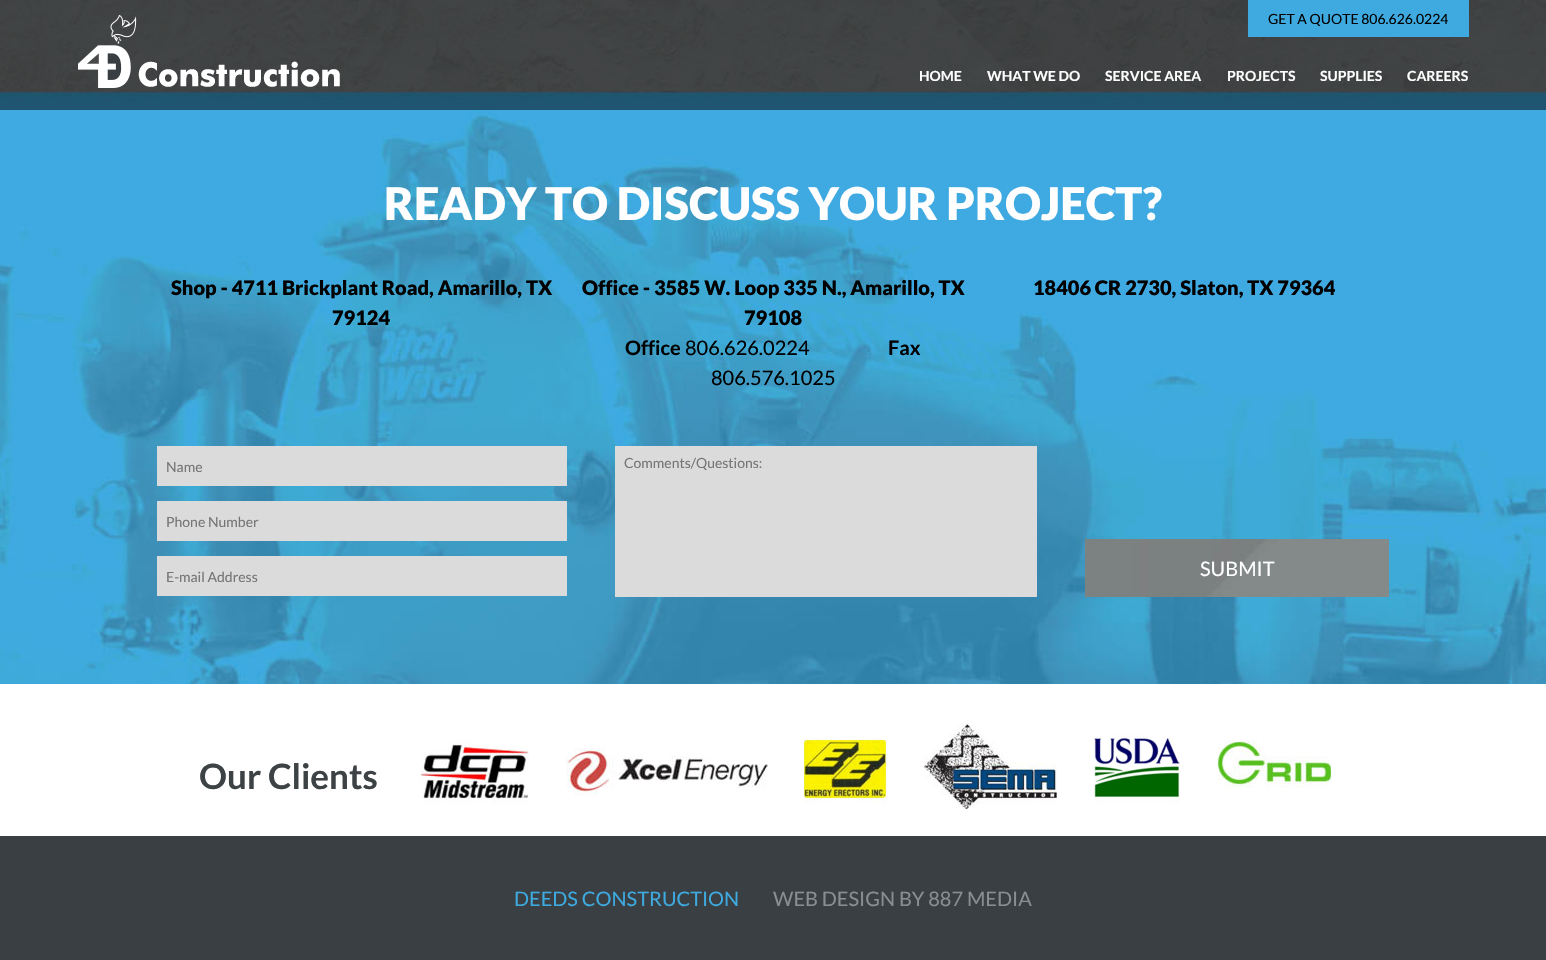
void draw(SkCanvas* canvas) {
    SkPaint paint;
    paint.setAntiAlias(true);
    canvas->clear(0xFFFFFFFF);
    canvas->drawImageRect(SkImages::DeferredFromEncodedData(SkData::MakeFromFileName("img1.png")), SkRect::MakeXYWH(0, 0, 1546, 91), SkSamplingOptions());
    canvas->drawImageRect(SkImages::DeferredFromEncodedData(SkData::MakeFromFileName("img3.png")), SkRect::MakeXYWH(0, 91, 1546, 593), SkSamplingOptions());
    paint.setColor(0x80000000);
    canvas->drawRect(SkRect::MakeXYWH(0, 0, 1546, 110), paint);
    canvas->drawImageRect(SkImages::DeferredFromEncodedData(SkData::MakeFromFileName("img2.png")), SkRect::MakeXYWH(78, 15, 262, 73), SkSamplingOptions());
    paint.setColor(0xFF3EAAE0);
    canvas->drawRect(SkRect::MakeXYWH(1248, 0, 221, 37), paint);
    SkFont font1(fontMgr->matchFamilyStyle("Lato", SkFontStyle::Normal()), 14);
    font1.setSubpixel(true);
    paint.setColor(0xFF000000);
    canvas->drawString("GET A QUOTE 806.626.0224", 1268, 24, font1, paint);
    SkFont font2(fontMgr->matchFamilyStyle("Lato", SkFontStyle::Bold()), 14);
    font2.setSubpixel(true);
    paint.setColor(0xFFFEFEFE);
    canvas->drawString("HOME", 919, 81, font2, paint);
    canvas->drawString("WHAT WE DO", 987, 81, font2, paint);
    canvas->drawString("SERVICE AREA", 1105, 81, font2, paint);
    canvas->drawString("PROJECTS", 1227, 81, font2, paint);
    canvas->drawString("SUPPLIES", 1320, 81, font2, paint);
    canvas->drawString("CAREERS", 1407, 81, font2, paint);
    SkFont font3(fontMgr->matchFamilyStyle("Lato", SkFontStyle(900, SkFontStyle::kNormal_Width, SkFontStyle::kUpright_Slant)), 45);
    font3.setSubpixel(true);
    canvas->drawString("READY TO DISCUSS YOUR PROJECT?", 384, 220, font3, paint);
    SkFont font4(fontMgr->matchFamilyStyle("Lato", SkFontStyle(900, SkFontStyle::kNormal_Width, SkFontStyle::kUpright_Slant)), 20);
    font4.setSubpixel(true);
    paint.setColor(0xFF000000);
    canvas->drawString("Shop - 4711 Brickplant Road, Amarillo, TX", 171, 295, font4, paint);
    canvas->drawString("79124", 332, 325, font4, paint);
    canvas->drawString("Office - 3585 W. Loop 335 N., Amarillo, TX", 582, 295, font4, paint);
    canvas->drawString("79108", 744, 325, font4, paint);
    SkFont font5(fontMgr->matchFamilyStyle("Lato", SkFontStyle::Bold()), 20);
    font5.setSubpixel(true);
    canvas->drawString("Office", 625, 355, font5, paint);
    SkFont font6(fontMgr->matchFamilyStyle("Lato", SkFontStyle::Normal()), 20);
    font6.setSubpixel(true);
    canvas->drawString("806.626.0224", 685, 355, font6, paint);
    canvas->drawString("Fax", 888, 355, font5, paint);
    canvas->drawString("806.576.1025", 711, 385, font6, paint);
    canvas->drawString("18406 CR 2730, Slaton, TX 79364", 1033, 295, font4, paint);
    paint.setColor(0xFFDBDBDB);
    canvas->drawRect(SkRect::MakeXYWH(157, 446, 410, 40), paint);
    paint.setColor(0xFF757575);
    canvas->drawString("Name", 166, 472, font1, paint);
    paint.setColor(0xFFDBDBDB);
    canvas->drawRect(SkRect::MakeXYWH(157, 501, 410, 40), paint);
    paint.setColor(0xFF757575);
    canvas->drawString("Phone Number", 166, 527, font1, paint);
    paint.setColor(0xFFDBDBDB);
    canvas->drawRect(SkRect::MakeXYWH(157, 556, 410, 40), paint);
    paint.setColor(0xFF757575);
    canvas->drawString("E-mail Address", 166, 582, font1, paint);
    paint.setColor(0xFFDBDBDB);
    canvas->drawRect(SkRect::MakeXYWH(615, 446, 422, 151), paint);
    paint.setColor(0xFF757575);
    canvas->drawString("Comments/Questions:", 624, 468, font1, paint);
    canvas->drawImageRect(SkImages::DeferredFromEncodedData(SkData::MakeFromFileName("img4.png")), SkRect::MakeXYWH(1085, 539, 304, 58), SkSamplingOptions());
    paint.setColor(0xFFFEFEFE);
    canvas->drawString("SUBMIT", 1200, 576, font6, paint);
    SkFont font7(fontMgr->matchFamilyStyle("Lato", SkFontStyle::Bold()), 35);
    font7.setSubpixel(true);
    paint.setColor(0xFF3D4245);
    canvas->drawString("Our Clients", 199, 789, font7, paint);
    canvas->drawImageRect(SkImages::DeferredFromEncodedData(SkData::MakeFromFileName("img5.png")), SkRect::MakeXYWH(420, 740, 109, 64), SkSamplingOptions());
    canvas->drawImageRect(SkImages::DeferredFromEncodedData(SkData::MakeFromFileName("img6.png")), SkRect::MakeXYWH(566, 748, 202, 48), SkSamplingOptions());
    canvas->drawImageRect(SkImages::DeferredFromEncodedData(SkData::MakeFromFileName("img7.png")), SkRect::MakeXYWH(804, 739, 83, 65), SkSamplingOptions());
    canvas->drawImageRect(SkImages::DeferredFromEncodedData(SkData::MakeFromFileName("img8.png")), SkRect::MakeXYWH(924, 724, 133, 85), SkSamplingOptions());
    canvas->drawImageRect(SkImages::DeferredFromEncodedData(SkData::MakeFromFileName("img9.png")), SkRect::MakeXYWH(1094, 732, 86, 72), SkSamplingOptions());
    canvas->drawImageRect(SkImages::DeferredFromEncodedData(SkData::MakeFromFileName("img10.png")), SkRect::MakeXYWH(1217, 740, 115, 48), SkSamplingOptions());
    paint.setColor(0xFF393F43);
    canvas->drawRect(SkRect::MakeXYWH(0, 836, 1546, 124), paint);
    paint.setColor(0xFF3EAAE0);
    canvas->drawString("DEEDS CONSTRUCTION", 514, 906, font6, paint);
    paint.setColor(0xFF898E90);
    canvas->drawString("WEB DESIGN BY 887 MEDIA", 773, 906, font6, paint);
}
